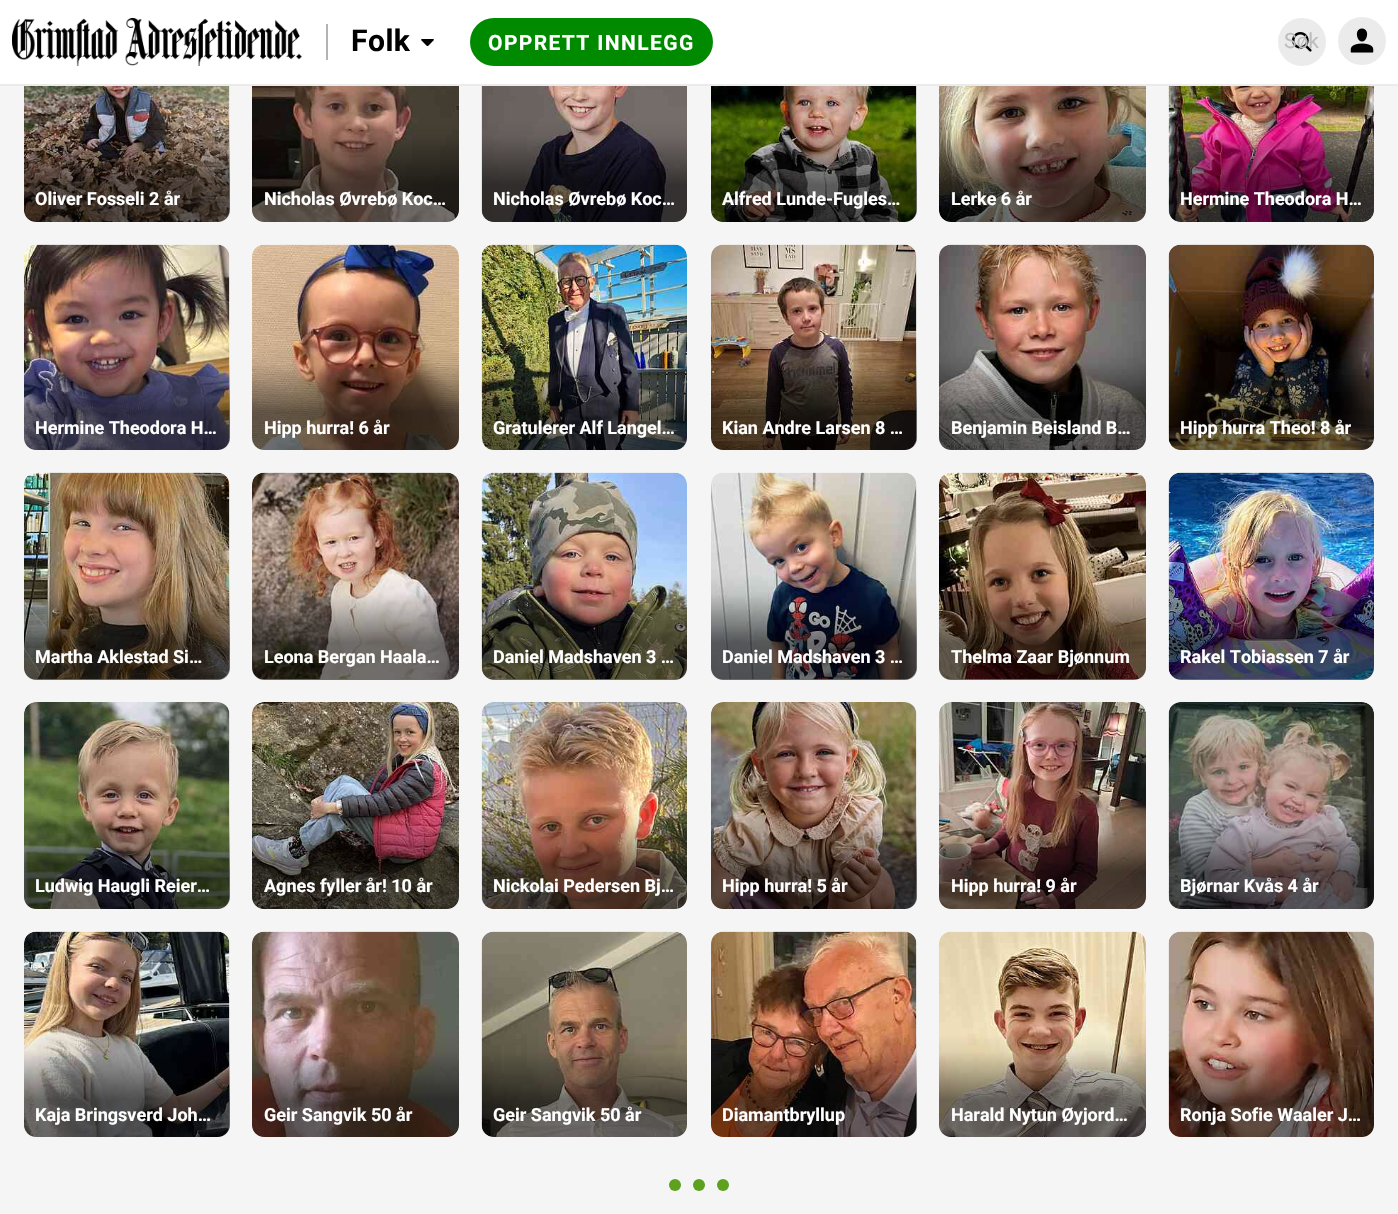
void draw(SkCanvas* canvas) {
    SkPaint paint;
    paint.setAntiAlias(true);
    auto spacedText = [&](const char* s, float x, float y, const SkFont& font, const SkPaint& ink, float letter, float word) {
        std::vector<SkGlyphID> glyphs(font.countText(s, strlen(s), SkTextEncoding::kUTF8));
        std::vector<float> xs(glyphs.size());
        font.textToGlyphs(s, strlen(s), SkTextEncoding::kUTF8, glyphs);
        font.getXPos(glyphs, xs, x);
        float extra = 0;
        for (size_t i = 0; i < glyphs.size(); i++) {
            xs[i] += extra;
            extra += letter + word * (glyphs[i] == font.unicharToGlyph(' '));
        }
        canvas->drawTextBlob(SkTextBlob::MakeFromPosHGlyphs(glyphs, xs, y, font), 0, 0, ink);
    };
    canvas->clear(0xFFF5F5F5);
    paint.setColor(0xFFFFFFFF);
    canvas->drawRect(SkRect::MakeXYWH(0, 0, 1398, 84), paint);
    paint.setColor(0xFFEBEBEB);
    canvas->drawRect(SkRect::MakeXYWH(0, 84, 1398, 2), paint);
    canvas->drawImageRect(SkImages::DeferredFromEncodedData(SkData::MakeFromFileName("img1.png")), SkRect::MakeXYWH(12, 18, 290, 48), SkSamplingOptions());
    paint.setColor(0xFFB3B3B3);
    canvas->drawRect(SkRect::MakeXYWH(326, 24, 2, 36), paint);
    SkFont font1(fontMgr->matchFamilyStyle("Roboto", SkFontStyle::Bold()), 30);
    font1.setSubpixel(true);
    paint.setColor(0xFF000000);
    spacedText("Folk", 351, 51, font1, paint, 0.5f, 0);
    canvas->drawImageRect(SkImages::DeferredFromEncodedData(SkData::MakeFromFileName("img2.png")), SkRect::MakeXYWH(421, 39, 13, 7), SkSamplingOptions());
    paint.setColor(0xFF008A00);
    canvas->drawRoundRect(SkRect::MakeXYWH(470, 18, 243, 48), 24, 24, paint);
    SkFont font2(fontMgr->matchFamilyStyle("Roboto", SkFontStyle::Bold()), 21);
    font2.setSubpixel(true);
    paint.setColor(0xFFFFFFFF);
    spacedText("OPPRETT INNLEGG", 488, 50, font2, paint, 1.4f, 0);
    paint.setColor(0xFFEBEBEB);
    canvas->drawCircle(1302, 42, 24, paint);
    canvas->drawImageRect(SkImages::DeferredFromEncodedData(SkData::MakeFromFileName("img3.png")), SkRect::MakeXYWH(1292, 32, 20, 20), SkSamplingOptions());
    SkFont font3(fontMgr->matchFamilyStyle("Roboto", SkFontStyle::Normal()), 21);
    font3.setSubpixel(true);
    paint.setColor(0xFFBDBDBD);
    canvas->drawString("Søk", 1284, 48, font3, paint);
    paint.setColor(0xFFEBEBEB);
    canvas->drawCircle(1362, 41, 24, paint);
    canvas->drawImageRect(SkImages::DeferredFromEncodedData(SkData::MakeFromFileName("img4.png")), SkRect::MakeXYWH(1350, 28, 24, 25), SkSamplingOptions());
    canvas->drawImageRect(SkImages::DeferredFromEncodedData(SkData::MakeFromFileName("img5.png")), SkRect::MakeXYWH(24, 86, 206, 136), SkSamplingOptions());
    {
        const SkColor colors[] = {0x8C000000, 0x8C000000, 0x63000000, 0x0F000000, 0x00000000};
        const float stops[] = {0, 0.36f, 0.51f, 0.83f, 1};
        const SkPoint ends[] = {{127, 222}, {127, 119}};
        paint.setShader(SkGradientShader::MakeLinear(ends, colors, stops, 5, SkTileMode::kClamp));
        paint.setAlpha(255);
    }
    canvas->drawPath(SkPathBuilder().moveTo(24, 119).lineTo(230, 119).lineTo(230, 210).cubicTo(230, 216.5f, 224.5f, 222, 218, 222).lineTo(36, 222).cubicTo(29.5f, 222, 24, 216.5f, 24, 210).close().detach(), paint);
    SkFont font4(fontMgr->matchFamilyStyle("Roboto", SkFontStyle::Bold()), 18);
    font4.setSubpixel(true);
    paint.setShader(nullptr);
    paint.setColor(0xFFFFFFFF);
    canvas->drawString("Oliver Fosseli 2 år", 35, 205, font4, paint);
    canvas->drawImageRect(SkImages::DeferredFromEncodedData(SkData::MakeFromFileName("img6.png")), SkRect::MakeXYWH(252, 86, 207, 136), SkSamplingOptions());
    {
        const SkColor colors[] = {0x8C000000, 0x8C000000, 0x63000000, 0x0F000000, 0x00000000};
        const float stops[] = {0, 0.36f, 0.51f, 0.83f, 1};
        const SkPoint ends[] = {{356, 222}, {356, 119}};
        paint.setShader(SkGradientShader::MakeLinear(ends, colors, stops, 5, SkTileMode::kClamp));
        paint.setAlpha(255);
    }
    canvas->drawPath(SkPathBuilder().moveTo(252, 119).lineTo(459, 119).lineTo(459, 210).cubicTo(459, 216.5f, 453.5f, 222, 447, 222).lineTo(264, 222).cubicTo(257.5f, 222, 252, 216.5f, 252, 210).close().detach(), paint);
    paint.setShader(nullptr);
    paint.setColor(0xFFFFFFFF);
    canvas->drawString("Nicholas Øvrebø Koc…", 264, 205, font4, paint);
    canvas->drawImageRect(SkImages::DeferredFromEncodedData(SkData::MakeFromFileName("img7.png")), SkRect::MakeXYWH(481, 86, 206, 136), SkSamplingOptions());
    {
        const SkColor colors[] = {0x8C000000, 0x8C000000, 0x63000000, 0x0F000000, 0x00000000};
        const float stops[] = {0, 0.36f, 0.51f, 0.83f, 1};
        const SkPoint ends[] = {{584, 222}, {584, 119}};
        paint.setShader(SkGradientShader::MakeLinear(ends, colors, stops, 5, SkTileMode::kClamp));
        paint.setAlpha(255);
    }
    canvas->drawPath(SkPathBuilder().moveTo(482, 119).lineTo(687, 119).lineTo(687, 210).cubicTo(687, 216.5f, 681.5f, 222, 675, 222).lineTo(494, 222).cubicTo(487.5f, 222, 482, 216.5f, 482, 210).close().detach(), paint);
    paint.setShader(nullptr);
    paint.setColor(0xFFFFFFFF);
    canvas->drawString("Nicholas Øvrebø Koc…", 493, 205, font4, paint);
    canvas->drawImageRect(SkImages::DeferredFromEncodedData(SkData::MakeFromFileName("img8.png")), SkRect::MakeXYWH(711, 86, 206, 136), SkSamplingOptions());
    {
        const SkColor colors[] = {0x8C000000, 0x8C000000, 0x63000000, 0x0F000000, 0x00000000};
        const float stops[] = {0, 0.36f, 0.51f, 0.83f, 1};
        const SkPoint ends[] = {{814, 222}, {814, 119}};
        paint.setShader(SkGradientShader::MakeLinear(ends, colors, stops, 5, SkTileMode::kClamp));
        paint.setAlpha(255);
    }
    canvas->drawPath(SkPathBuilder().moveTo(711, 119).lineTo(917, 119).lineTo(917, 210).cubicTo(917, 216.5f, 911.5f, 222, 905, 222).lineTo(723, 222).cubicTo(716.5f, 222, 711, 216.5f, 711, 210).close().detach(), paint);
    paint.setShader(nullptr);
    paint.setColor(0xFFFFFFFF);
    canvas->drawString("Alfred Lunde-Fugles…", 722, 205, font4, paint);
    canvas->drawImageRect(SkImages::DeferredFromEncodedData(SkData::MakeFromFileName("img9.png")), SkRect::MakeXYWH(939, 86, 207, 136), SkSamplingOptions());
    {
        const SkColor colors[] = {0x8C000000, 0x8C000000, 0x63000000, 0x0F000000, 0x00000000};
        const float stops[] = {0, 0.36f, 0.51f, 0.83f, 1};
        const SkPoint ends[] = {{1043, 222}, {1043, 119}};
        paint.setShader(SkGradientShader::MakeLinear(ends, colors, stops, 5, SkTileMode::kClamp));
        paint.setAlpha(255);
    }
    canvas->drawPath(SkPathBuilder().moveTo(939, 119).lineTo(1146, 119).lineTo(1146, 210).cubicTo(1146, 216.5f, 1140.5f, 222, 1134, 222).lineTo(951, 222).cubicTo(944.5f, 222, 939, 216.5f, 939, 210).close().detach(), paint);
    paint.setShader(nullptr);
    paint.setColor(0xFFFFFFFF);
    canvas->drawString("Lerke 6 år", 951, 205, font4, paint);
    canvas->drawImageRect(SkImages::DeferredFromEncodedData(SkData::MakeFromFileName("img10.png")), SkRect::MakeXYWH(1168, 86, 206, 136), SkSamplingOptions());
    {
        const SkColor colors[] = {0x8C000000, 0x8C000000, 0x63000000, 0x0F000000, 0x00000000};
        const float stops[] = {0, 0.36f, 0.51f, 0.83f, 1};
        const SkPoint ends[] = {{1271, 222}, {1271, 119}};
        paint.setShader(SkGradientShader::MakeLinear(ends, colors, stops, 5, SkTileMode::kClamp));
        paint.setAlpha(255);
    }
    canvas->drawPath(SkPathBuilder().moveTo(1169, 119).lineTo(1374, 119).lineTo(1374, 210).cubicTo(1374, 216.5f, 1368.5f, 222, 1362, 222).lineTo(1181, 222).cubicTo(1174.5f, 222, 1169, 216.5f, 1169, 210).close().detach(), paint);
    paint.setShader(nullptr);
    paint.setColor(0xFFFFFFFF);
    canvas->drawString("Hermine Theodora H…", 1180, 205, font4, paint);
    canvas->drawImageRect(SkImages::DeferredFromEncodedData(SkData::MakeFromFileName("img11.png")), SkRect::MakeXYWH(24, 244, 206, 206), SkSamplingOptions());
    {
        const SkColor colors[] = {0x8C000000, 0x8C000000, 0x63000000, 0x0F000000, 0x00000000};
        const float stops[] = {0, 0.37f, 0.51f, 0.84f, 1};
        const SkPoint ends[] = {{127, 450}, {127, 348}};
        paint.setShader(SkGradientShader::MakeLinear(ends, colors, stops, 5, SkTileMode::kClamp));
        paint.setAlpha(255);
    }
    canvas->drawPath(SkPathBuilder().moveTo(24, 348).lineTo(230, 348).lineTo(230, 438).cubicTo(230, 444.5f, 224.5f, 450, 218, 450).lineTo(36, 450).cubicTo(29.5f, 450, 24, 444.5f, 24, 438).close().detach(), paint);
    paint.setShader(nullptr);
    paint.setColor(0xFFFFFFFF);
    canvas->drawString("Hermine Theodora H…", 35, 434, font4, paint);
    canvas->drawImageRect(SkImages::DeferredFromEncodedData(SkData::MakeFromFileName("img12.png")), SkRect::MakeXYWH(252, 244, 207, 206), SkSamplingOptions());
    {
        const SkColor colors[] = {0x8C000000, 0x8C000000, 0x63000000, 0x0F000000, 0x00000000};
        const float stops[] = {0, 0.37f, 0.51f, 0.84f, 1};
        const SkPoint ends[] = {{356, 450}, {356, 348}};
        paint.setShader(SkGradientShader::MakeLinear(ends, colors, stops, 5, SkTileMode::kClamp));
        paint.setAlpha(255);
    }
    canvas->drawPath(SkPathBuilder().moveTo(252, 348).lineTo(459, 348).lineTo(459, 438).cubicTo(459, 444.5f, 453.5f, 450, 447, 450).lineTo(264, 450).cubicTo(257.5f, 450, 252, 444.5f, 252, 438).close().detach(), paint);
    paint.setShader(nullptr);
    paint.setColor(0xFFFFFFFF);
    canvas->drawString("Hipp hurra! 6 år", 264, 434, font4, paint);
    canvas->drawImageRect(SkImages::DeferredFromEncodedData(SkData::MakeFromFileName("img13.png")), SkRect::MakeXYWH(481, 244, 206, 206), SkSamplingOptions());
    {
        const SkColor colors[] = {0x8C000000, 0x8C000000, 0x63000000, 0x0F000000, 0x00000000};
        const float stops[] = {0, 0.37f, 0.51f, 0.84f, 1};
        const SkPoint ends[] = {{584, 450}, {584, 348}};
        paint.setShader(SkGradientShader::MakeLinear(ends, colors, stops, 5, SkTileMode::kClamp));
        paint.setAlpha(255);
    }
    canvas->drawPath(SkPathBuilder().moveTo(482, 348).lineTo(687, 348).lineTo(687, 438).cubicTo(687, 444.5f, 681.5f, 450, 675, 450).lineTo(494, 450).cubicTo(487.5f, 450, 482, 444.5f, 482, 438).close().detach(), paint);
    paint.setShader(nullptr);
    paint.setColor(0xFFFFFFFF);
    canvas->drawString("Gratulerer Alf Langel…", 493, 434, font4, paint);
    canvas->drawImageRect(SkImages::DeferredFromEncodedData(SkData::MakeFromFileName("img14.png")), SkRect::MakeXYWH(711, 244, 206, 206), SkSamplingOptions());
    {
        const SkColor colors[] = {0x8C000000, 0x8C000000, 0x63000000, 0x0F000000, 0x00000000};
        const float stops[] = {0, 0.37f, 0.51f, 0.84f, 1};
        const SkPoint ends[] = {{814, 450}, {814, 348}};
        paint.setShader(SkGradientShader::MakeLinear(ends, colors, stops, 5, SkTileMode::kClamp));
        paint.setAlpha(255);
    }
    canvas->drawPath(SkPathBuilder().moveTo(711, 348).lineTo(917, 348).lineTo(917, 438).cubicTo(917, 444.5f, 911.5f, 450, 905, 450).lineTo(723, 450).cubicTo(716.5f, 450, 711, 444.5f, 711, 438).close().detach(), paint);
    paint.setShader(nullptr);
    paint.setColor(0xFFFFFFFF);
    canvas->drawString("Kian Andre Larsen 8 …", 722, 434, font4, paint);
    canvas->drawImageRect(SkImages::DeferredFromEncodedData(SkData::MakeFromFileName("img15.png")), SkRect::MakeXYWH(939, 244, 207, 206), SkSamplingOptions());
    {
        const SkColor colors[] = {0x8C000000, 0x8C000000, 0x63000000, 0x0F000000, 0x00000000};
        const float stops[] = {0, 0.37f, 0.51f, 0.84f, 1};
        const SkPoint ends[] = {{1043, 450}, {1043, 348}};
        paint.setShader(SkGradientShader::MakeLinear(ends, colors, stops, 5, SkTileMode::kClamp));
        paint.setAlpha(255);
    }
    canvas->drawPath(SkPathBuilder().moveTo(939, 348).lineTo(1146, 348).lineTo(1146, 438).cubicTo(1146, 444.5f, 1140.5f, 450, 1134, 450).lineTo(951, 450).cubicTo(944.5f, 450, 939, 444.5f, 939, 438).close().detach(), paint);
    paint.setShader(nullptr);
    paint.setColor(0xFFFFFFFF);
    canvas->drawString("Benjamin Beisland B…", 951, 434, font4, paint);
    canvas->drawImageRect(SkImages::DeferredFromEncodedData(SkData::MakeFromFileName("img16.png")), SkRect::MakeXYWH(1168, 244, 206, 206), SkSamplingOptions());
    {
        const SkColor colors[] = {0x8C000000, 0x8C000000, 0x63000000, 0x0F000000, 0x00000000};
        const float stops[] = {0, 0.37f, 0.51f, 0.84f, 1};
        const SkPoint ends[] = {{1271, 450}, {1271, 348}};
        paint.setShader(SkGradientShader::MakeLinear(ends, colors, stops, 5, SkTileMode::kClamp));
        paint.setAlpha(255);
    }
    canvas->drawPath(SkPathBuilder().moveTo(1169, 348).lineTo(1374, 348).lineTo(1374, 438).cubicTo(1374, 444.5f, 1368.5f, 450, 1362, 450).lineTo(1181, 450).cubicTo(1174.5f, 450, 1169, 444.5f, 1169, 438).close().detach(), paint);
    paint.setShader(nullptr);
    paint.setColor(0xFFFFFFFF);
    canvas->drawString("Hipp hurra Theo! 8 år", 1180, 434, font4, paint);
    canvas->drawImageRect(SkImages::DeferredFromEncodedData(SkData::MakeFromFileName("img17.png")), SkRect::MakeXYWH(24, 472, 206, 208), SkSamplingOptions());
    {
        const SkColor colors[] = {0x8C000000, 0x8C000000, 0x63000000, 0x0F000000, 0x00000000};
        const float stops[] = {0, 0.36f, 0.51f, 0.83f, 1};
        const SkPoint ends[] = {{127, 680}, {127, 576}};
        paint.setShader(SkGradientShader::MakeLinear(ends, colors, stops, 5, SkTileMode::kClamp));
        paint.setAlpha(255);
    }
    canvas->drawPath(SkPathBuilder().moveTo(24, 576).lineTo(230, 576).lineTo(230, 668).cubicTo(230, 674.5f, 224.5f, 680, 218, 680).lineTo(36, 680).cubicTo(29.5f, 680, 24, 674.5f, 24, 668).close().detach(), paint);
    paint.setShader(nullptr);
    paint.setColor(0xFFFFFFFF);
    canvas->drawString("Martha Aklestad Si…", 35, 663, font4, paint);
    canvas->drawImageRect(SkImages::DeferredFromEncodedData(SkData::MakeFromFileName("img18.png")), SkRect::MakeXYWH(252, 472, 207, 208), SkSamplingOptions());
    {
        const SkColor colors[] = {0x8C000000, 0x8C000000, 0x63000000, 0x0F000000, 0x00000000};
        const float stops[] = {0, 0.36f, 0.51f, 0.83f, 1};
        const SkPoint ends[] = {{356, 680}, {356, 576}};
        paint.setShader(SkGradientShader::MakeLinear(ends, colors, stops, 5, SkTileMode::kClamp));
        paint.setAlpha(255);
    }
    canvas->drawPath(SkPathBuilder().moveTo(252, 576).lineTo(459, 576).lineTo(459, 668).cubicTo(459, 674.5f, 453.5f, 680, 447, 680).lineTo(264, 680).cubicTo(257.5f, 680, 252, 674.5f, 252, 668).close().detach(), paint);
    paint.setShader(nullptr);
    paint.setColor(0xFFFFFFFF);
    canvas->drawString("Leona Bergan Haala…", 264, 663, font4, paint);
    canvas->drawImageRect(SkImages::DeferredFromEncodedData(SkData::MakeFromFileName("img19.png")), SkRect::MakeXYWH(481, 472, 206, 208), SkSamplingOptions());
    {
        const SkColor colors[] = {0x8C000000, 0x8C000000, 0x63000000, 0x0F000000, 0x00000000};
        const float stops[] = {0, 0.36f, 0.51f, 0.83f, 1};
        const SkPoint ends[] = {{584, 680}, {584, 576}};
        paint.setShader(SkGradientShader::MakeLinear(ends, colors, stops, 5, SkTileMode::kClamp));
        paint.setAlpha(255);
    }
    canvas->drawPath(SkPathBuilder().moveTo(482, 576).lineTo(687, 576).lineTo(687, 668).cubicTo(687, 674.5f, 681.5f, 680, 675, 680).lineTo(494, 680).cubicTo(487.5f, 680, 482, 674.5f, 482, 668).close().detach(), paint);
    paint.setShader(nullptr);
    paint.setColor(0xFFFFFFFF);
    canvas->drawString("Daniel Madshaven 3 …", 493, 663, font4, paint);
    canvas->drawImageRect(SkImages::DeferredFromEncodedData(SkData::MakeFromFileName("img20.png")), SkRect::MakeXYWH(711, 472, 206, 208), SkSamplingOptions());
    {
        const SkColor colors[] = {0x8C000000, 0x8C000000, 0x63000000, 0x0F000000, 0x00000000};
        const float stops[] = {0, 0.36f, 0.51f, 0.83f, 1};
        const SkPoint ends[] = {{814, 680}, {814, 576}};
        paint.setShader(SkGradientShader::MakeLinear(ends, colors, stops, 5, SkTileMode::kClamp));
        paint.setAlpha(255);
    }
    canvas->drawPath(SkPathBuilder().moveTo(711, 576).lineTo(917, 576).lineTo(917, 668).cubicTo(917, 674.5f, 911.5f, 680, 905, 680).lineTo(723, 680).cubicTo(716.5f, 680, 711, 674.5f, 711, 668).close().detach(), paint);
    paint.setShader(nullptr);
    paint.setColor(0xFFFFFFFF);
    canvas->drawString("Daniel Madshaven 3 …", 722, 663, font4, paint);
    canvas->drawImageRect(SkImages::DeferredFromEncodedData(SkData::MakeFromFileName("img21.png")), SkRect::MakeXYWH(939, 472, 207, 208), SkSamplingOptions());
    {
        const SkColor colors[] = {0x8C000000, 0x8C000000, 0x63000000, 0x0F000000, 0x00000000};
        const float stops[] = {0, 0.36f, 0.51f, 0.83f, 1};
        const SkPoint ends[] = {{1043, 680}, {1043, 576}};
        paint.setShader(SkGradientShader::MakeLinear(ends, colors, stops, 5, SkTileMode::kClamp));
        paint.setAlpha(255);
    }
    canvas->drawPath(SkPathBuilder().moveTo(939, 576).lineTo(1146, 576).lineTo(1146, 668).cubicTo(1146, 674.5f, 1140.5f, 680, 1134, 680).lineTo(951, 680).cubicTo(944.5f, 680, 939, 674.5f, 939, 668).close().detach(), paint);
    paint.setShader(nullptr);
    paint.setColor(0xFFFFFFFF);
    canvas->drawString("Thelma Zaar Bjønnum", 951, 663, font4, paint);
    canvas->drawImageRect(SkImages::DeferredFromEncodedData(SkData::MakeFromFileName("img22.png")), SkRect::MakeXYWH(1168, 472, 206, 208), SkSamplingOptions());
    {
        const SkColor colors[] = {0x8C000000, 0x8C000000, 0x63000000, 0x0F000000, 0x00000000};
        const float stops[] = {0, 0.36f, 0.51f, 0.83f, 1};
        const SkPoint ends[] = {{1271, 680}, {1271, 576}};
        paint.setShader(SkGradientShader::MakeLinear(ends, colors, stops, 5, SkTileMode::kClamp));
        paint.setAlpha(255);
    }
    canvas->drawPath(SkPathBuilder().moveTo(1169, 576).lineTo(1374, 576).lineTo(1374, 668).cubicTo(1374, 674.5f, 1368.5f, 680, 1362, 680).lineTo(1181, 680).cubicTo(1174.5f, 680, 1169, 674.5f, 1169, 668).close().detach(), paint);
    paint.setShader(nullptr);
    paint.setColor(0xFFFFFFFF);
    canvas->drawString("Rakel Tobiassen 7 år", 1180, 663, font4, paint);
    canvas->drawImageRect(SkImages::DeferredFromEncodedData(SkData::MakeFromFileName("img23.png")), SkRect::MakeXYWH(24, 702, 206, 207), SkSamplingOptions());
    {
        const SkColor colors[] = {0x8C000000, 0x8C000000, 0x63000000, 0x0F000000, 0x00000000};
        const float stops[] = {0, 0.36f, 0.51f, 0.83f, 1};
        const SkPoint ends[] = {{127, 909}, {127, 806}};
        paint.setShader(SkGradientShader::MakeLinear(ends, colors, stops, 5, SkTileMode::kClamp));
        paint.setAlpha(255);
    }
    canvas->drawPath(SkPathBuilder().moveTo(24, 806).lineTo(230, 806).lineTo(230, 897).cubicTo(230, 903.5f, 224.5f, 909, 218, 909).lineTo(36, 909).cubicTo(29.5f, 909, 24, 903.5f, 24, 897).close().detach(), paint);
    paint.setShader(nullptr);
    paint.setColor(0xFFFFFFFF);
    canvas->drawString("Ludwig Haugli Reier…", 35, 892, font4, paint);
    canvas->drawImageRect(SkImages::DeferredFromEncodedData(SkData::MakeFromFileName("img24.png")), SkRect::MakeXYWH(252, 702, 207, 207), SkSamplingOptions());
    {
        const SkColor colors[] = {0x8C000000, 0x8C000000, 0x63000000, 0x0F000000, 0x00000000};
        const float stops[] = {0, 0.36f, 0.51f, 0.83f, 1};
        const SkPoint ends[] = {{356, 909}, {356, 806}};
        paint.setShader(SkGradientShader::MakeLinear(ends, colors, stops, 5, SkTileMode::kClamp));
        paint.setAlpha(255);
    }
    canvas->drawPath(SkPathBuilder().moveTo(252, 806).lineTo(459, 806).lineTo(459, 897).cubicTo(459, 903.5f, 453.5f, 909, 447, 909).lineTo(264, 909).cubicTo(257.5f, 909, 252, 903.5f, 252, 897).close().detach(), paint);
    paint.setShader(nullptr);
    paint.setColor(0xFFFFFFFF);
    canvas->drawString("Agnes fyller år! 10 år", 264, 892, font4, paint);
    canvas->drawImageRect(SkImages::DeferredFromEncodedData(SkData::MakeFromFileName("img25.png")), SkRect::MakeXYWH(481, 702, 206, 207), SkSamplingOptions());
    {
        const SkColor colors[] = {0x8C000000, 0x8C000000, 0x63000000, 0x0F000000, 0x00000000};
        const float stops[] = {0, 0.36f, 0.51f, 0.83f, 1};
        const SkPoint ends[] = {{584, 909}, {584, 806}};
        paint.setShader(SkGradientShader::MakeLinear(ends, colors, stops, 5, SkTileMode::kClamp));
        paint.setAlpha(255);
    }
    canvas->drawPath(SkPathBuilder().moveTo(482, 806).lineTo(687, 806).lineTo(687, 897).cubicTo(687, 903.5f, 681.5f, 909, 675, 909).lineTo(494, 909).cubicTo(487.5f, 909, 482, 903.5f, 482, 897).close().detach(), paint);
    paint.setShader(nullptr);
    paint.setColor(0xFFFFFFFF);
    canvas->drawString("Nickolai Pedersen Bj…", 493, 892, font4, paint);
    canvas->drawImageRect(SkImages::DeferredFromEncodedData(SkData::MakeFromFileName("img26.png")), SkRect::MakeXYWH(711, 702, 206, 207), SkSamplingOptions());
    {
        const SkColor colors[] = {0x8C000000, 0x8C000000, 0x63000000, 0x0F000000, 0x00000000};
        const float stops[] = {0, 0.36f, 0.51f, 0.83f, 1};
        const SkPoint ends[] = {{814, 909}, {814, 806}};
        paint.setShader(SkGradientShader::MakeLinear(ends, colors, stops, 5, SkTileMode::kClamp));
        paint.setAlpha(255);
    }
    canvas->drawPath(SkPathBuilder().moveTo(711, 806).lineTo(917, 806).lineTo(917, 897).cubicTo(917, 903.5f, 911.5f, 909, 905, 909).lineTo(723, 909).cubicTo(716.5f, 909, 711, 903.5f, 711, 897).close().detach(), paint);
    paint.setShader(nullptr);
    paint.setColor(0xFFFFFFFF);
    canvas->drawString("Hipp hurra! 5 år", 722, 892, font4, paint);
    canvas->drawImageRect(SkImages::DeferredFromEncodedData(SkData::MakeFromFileName("img27.png")), SkRect::MakeXYWH(939, 702, 207, 207), SkSamplingOptions());
    {
        const SkColor colors[] = {0x8C000000, 0x8C000000, 0x63000000, 0x0F000000, 0x00000000};
        const float stops[] = {0, 0.36f, 0.51f, 0.83f, 1};
        const SkPoint ends[] = {{1043, 909}, {1043, 806}};
        paint.setShader(SkGradientShader::MakeLinear(ends, colors, stops, 5, SkTileMode::kClamp));
        paint.setAlpha(255);
    }
    canvas->drawPath(SkPathBuilder().moveTo(939, 806).lineTo(1146, 806).lineTo(1146, 897).cubicTo(1146, 903.5f, 1140.5f, 909, 1134, 909).lineTo(951, 909).cubicTo(944.5f, 909, 939, 903.5f, 939, 897).close().detach(), paint);
    paint.setShader(nullptr);
    paint.setColor(0xFFFFFFFF);
    canvas->drawString("Hipp hurra! 9 år", 951, 892, font4, paint);
    canvas->drawImageRect(SkImages::DeferredFromEncodedData(SkData::MakeFromFileName("img28.png")), SkRect::MakeXYWH(1168, 702, 206, 207), SkSamplingOptions());
    {
        const SkColor colors[] = {0x8C000000, 0x8C000000, 0x63000000, 0x0F000000, 0x00000000};
        const float stops[] = {0, 0.36f, 0.51f, 0.83f, 1};
        const SkPoint ends[] = {{1271, 909}, {1271, 806}};
        paint.setShader(SkGradientShader::MakeLinear(ends, colors, stops, 5, SkTileMode::kClamp));
        paint.setAlpha(255);
    }
    canvas->drawPath(SkPathBuilder().moveTo(1169, 806).lineTo(1374, 806).lineTo(1374, 897).cubicTo(1374, 903.5f, 1368.5f, 909, 1362, 909).lineTo(1181, 909).cubicTo(1174.5f, 909, 1169, 903.5f, 1169, 897).close().detach(), paint);
    paint.setShader(nullptr);
    paint.setColor(0xFFFFFFFF);
    canvas->drawString("Bjørnar Kvås 4 år", 1180, 892, font4, paint);
    canvas->drawImageRect(SkImages::DeferredFromEncodedData(SkData::MakeFromFileName("img29.png")), SkRect::MakeXYWH(24, 931, 206, 206), SkSamplingOptions());
    {
        const SkColor colors[] = {0x8C000000, 0x8C000000, 0x63000000, 0x0F000000, 0x00000000};
        const float stops[] = {0, 0.36f, 0.51f, 0.83f, 1};
        const SkPoint ends[] = {{127, 1137}, {127, 1034}};
        paint.setShader(SkGradientShader::MakeLinear(ends, colors, stops, 5, SkTileMode::kClamp));
        paint.setAlpha(255);
    }
    canvas->drawPath(SkPathBuilder().moveTo(24, 1034).lineTo(230, 1034).lineTo(230, 1125).cubicTo(230, 1131.5f, 224.5f, 1137, 218, 1137).lineTo(36, 1137).cubicTo(29.5f, 1137, 24, 1131.5f, 24, 1125).close().detach(), paint);
    paint.setShader(nullptr);
    paint.setColor(0xFFFFFFFF);
    canvas->drawString("Kaja Bringsverd Joh…", 35, 1121, font4, paint);
    canvas->drawImageRect(SkImages::DeferredFromEncodedData(SkData::MakeFromFileName("img30.png")), SkRect::MakeXYWH(252, 931, 207, 206), SkSamplingOptions());
    {
        const SkColor colors[] = {0x8C000000, 0x8C000000, 0x63000000, 0x0F000000, 0x00000000};
        const float stops[] = {0, 0.36f, 0.51f, 0.83f, 1};
        const SkPoint ends[] = {{356, 1137}, {356, 1034}};
        paint.setShader(SkGradientShader::MakeLinear(ends, colors, stops, 5, SkTileMode::kClamp));
        paint.setAlpha(255);
    }
    canvas->drawPath(SkPathBuilder().moveTo(252, 1034).lineTo(459, 1034).lineTo(459, 1125).cubicTo(459, 1131.5f, 453.5f, 1137, 447, 1137).lineTo(264, 1137).cubicTo(257.5f, 1137, 252, 1131.5f, 252, 1125).close().detach(), paint);
    paint.setShader(nullptr);
    paint.setColor(0xFFFFFFFF);
    canvas->drawString("Geir Sangvik 50 år", 264, 1121, font4, paint);
    canvas->drawImageRect(SkImages::DeferredFromEncodedData(SkData::MakeFromFileName("img31.png")), SkRect::MakeXYWH(481, 931, 206, 206), SkSamplingOptions());
    {
        const SkColor colors[] = {0x8C000000, 0x8C000000, 0x63000000, 0x0F000000, 0x00000000};
        const float stops[] = {0, 0.36f, 0.51f, 0.83f, 1};
        const SkPoint ends[] = {{584, 1137}, {584, 1034}};
        paint.setShader(SkGradientShader::MakeLinear(ends, colors, stops, 5, SkTileMode::kClamp));
        paint.setAlpha(255);
    }
    canvas->drawPath(SkPathBuilder().moveTo(482, 1034).lineTo(687, 1034).lineTo(687, 1125).cubicTo(687, 1131.5f, 681.5f, 1137, 675, 1137).lineTo(494, 1137).cubicTo(487.5f, 1137, 482, 1131.5f, 482, 1125).close().detach(), paint);
    paint.setShader(nullptr);
    paint.setColor(0xFFFFFFFF);
    canvas->drawString("Geir Sangvik 50 år", 493, 1121, font4, paint);
    canvas->drawImageRect(SkImages::DeferredFromEncodedData(SkData::MakeFromFileName("img32.png")), SkRect::MakeXYWH(711, 931, 206, 206), SkSamplingOptions());
    {
        const SkColor colors[] = {0x8C000000, 0x8C000000, 0x63000000, 0x0F000000, 0x00000000};
        const float stops[] = {0, 0.36f, 0.51f, 0.83f, 1};
        const SkPoint ends[] = {{814, 1137}, {814, 1034}};
        paint.setShader(SkGradientShader::MakeLinear(ends, colors, stops, 5, SkTileMode::kClamp));
        paint.setAlpha(255);
    }
    canvas->drawPath(SkPathBuilder().moveTo(711, 1034).lineTo(917, 1034).lineTo(917, 1125).cubicTo(917, 1131.5f, 911.5f, 1137, 905, 1137).lineTo(723, 1137).cubicTo(716.5f, 1137, 711, 1131.5f, 711, 1125).close().detach(), paint);
    paint.setShader(nullptr);
    paint.setColor(0xFFFFFFFF);
    canvas->drawString("Diamantbryllup", 722, 1121, font4, paint);
    canvas->drawImageRect(SkImages::DeferredFromEncodedData(SkData::MakeFromFileName("img33.png")), SkRect::MakeXYWH(939, 931, 207, 206), SkSamplingOptions());
    {
        const SkColor colors[] = {0x8C000000, 0x8C000000, 0x63000000, 0x0F000000, 0x00000000};
        const float stops[] = {0, 0.36f, 0.51f, 0.83f, 1};
        const SkPoint ends[] = {{1043, 1137}, {1043, 1034}};
        paint.setShader(SkGradientShader::MakeLinear(ends, colors, stops, 5, SkTileMode::kClamp));
        paint.setAlpha(255);
    }
    canvas->drawPath(SkPathBuilder().moveTo(939, 1034).lineTo(1146, 1034).lineTo(1146, 1125).cubicTo(1146, 1131.5f, 1140.5f, 1137, 1134, 1137).lineTo(951, 1137).cubicTo(944.5f, 1137, 939, 1131.5f, 939, 1125).close().detach(), paint);
    paint.setShader(nullptr);
    paint.setColor(0xFFFFFFFF);
    canvas->drawString("Harald Nytun Øyjord…", 951, 1121, font4, paint);
    canvas->drawImageRect(SkImages::DeferredFromEncodedData(SkData::MakeFromFileName("img34.png")), SkRect::MakeXYWH(1168, 931, 206, 206), SkSamplingOptions());
    {
        const SkColor colors[] = {0x8C000000, 0x8C000000, 0x63000000, 0x0F000000, 0x00000000};
        const float stops[] = {0, 0.36f, 0.51f, 0.83f, 1};
        const SkPoint ends[] = {{1271, 1137}, {1271, 1034}};
        paint.setShader(SkGradientShader::MakeLinear(ends, colors, stops, 5, SkTileMode::kClamp));
        paint.setAlpha(255);
    }
    canvas->drawPath(SkPathBuilder().moveTo(1169, 1034).lineTo(1374, 1034).lineTo(1374, 1125).cubicTo(1374, 1131.5f, 1368.5f, 1137, 1362, 1137).lineTo(1181, 1137).cubicTo(1174.5f, 1137, 1169, 1131.5f, 1169, 1125).close().detach(), paint);
    paint.setShader(nullptr);
    paint.setColor(0xFFFFFFFF);
    canvas->drawString("Ronja Sofie Waaler J…", 1180, 1121, font4, paint);
    paint.setColor(0xFF5DA11E);
    canvas->drawCircle(675, 1185, 6, paint);
    canvas->drawCircle(699, 1185, 6, paint);
    canvas->drawCircle(723, 1185, 6, paint);
}
